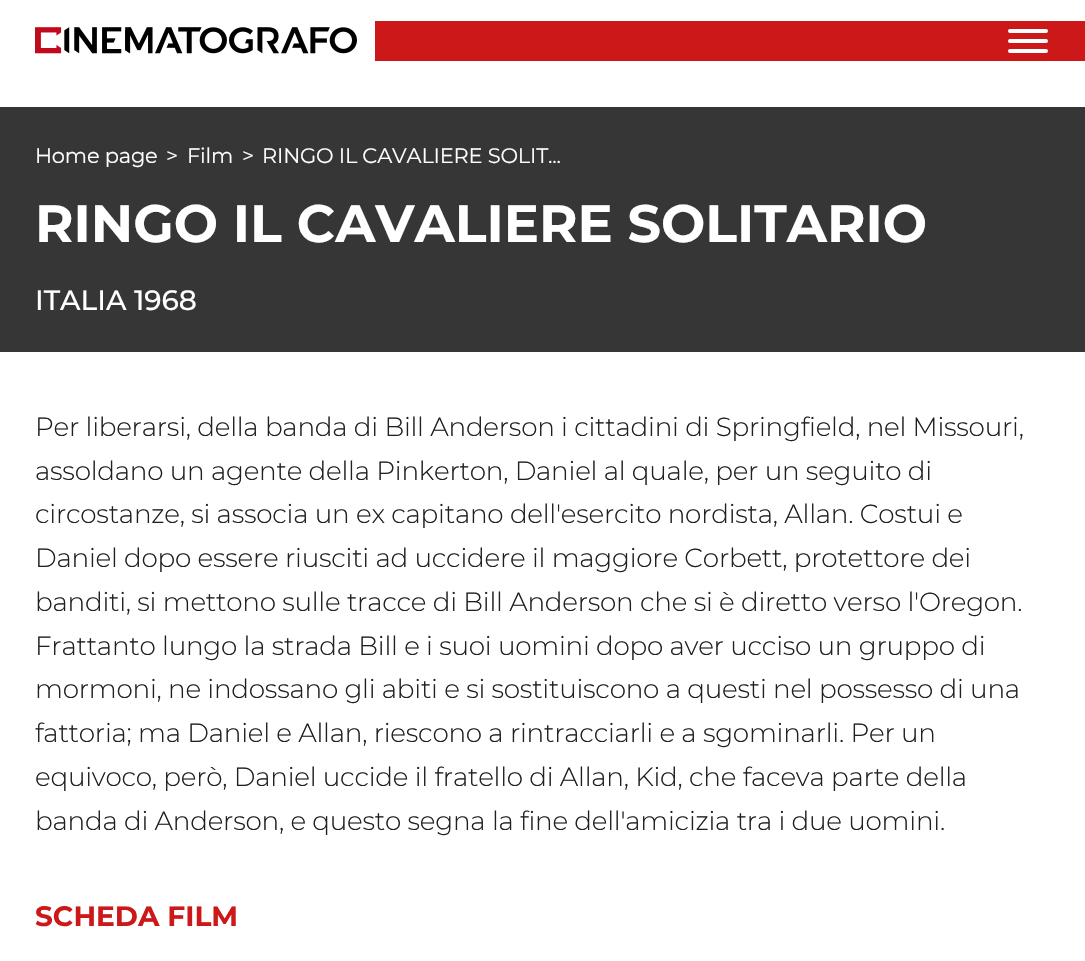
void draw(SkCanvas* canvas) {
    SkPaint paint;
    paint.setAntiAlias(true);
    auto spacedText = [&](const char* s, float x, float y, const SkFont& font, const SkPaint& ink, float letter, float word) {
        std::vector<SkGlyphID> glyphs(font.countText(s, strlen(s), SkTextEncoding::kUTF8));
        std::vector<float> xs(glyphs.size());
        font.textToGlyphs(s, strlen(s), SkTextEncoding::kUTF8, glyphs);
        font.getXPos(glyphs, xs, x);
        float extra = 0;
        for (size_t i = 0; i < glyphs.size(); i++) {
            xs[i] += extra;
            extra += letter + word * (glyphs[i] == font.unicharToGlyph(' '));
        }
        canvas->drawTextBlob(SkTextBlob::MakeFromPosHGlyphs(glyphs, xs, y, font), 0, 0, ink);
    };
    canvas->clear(0xFFFFFFFF);
    canvas->drawImageRect(SkImages::DeferredFromEncodedData(SkData::MakeFromFileName("img1.png")), SkRect::MakeXYWH(35, 27, 322, 27), SkSamplingOptions());
    paint.setColor(0xFFCD1819);
    canvas->drawRect(SkRect::MakeXYWH(375, 21, 710, 40), paint);
    paint.setStyle(SkPaint::kStroke_Style);
    paint.setStrokeWidth(4);
    paint.setStrokeCap(SkPaint::kRound_Cap);
    paint.setColor(0xFFFFFFFF);
    canvas->drawPath(SkPathBuilder().moveTo(1010, 31).lineTo(1046, 31).moveTo(1010, 41).lineTo(1046, 41).moveTo(1010, 51).lineTo(1046, 51).detach(), paint);
    paint.setStyle(SkPaint::kFill_Style);
    paint.setColor(0xFF363636);
    canvas->drawRect(SkRect::MakeXYWH(0, 107, 1085, 245), paint);
    SkFont font1(fontMgr->matchFamilyStyle("Montserrat", SkFontStyle::Normal()), 21);
    font1.setSubpixel(true);
    paint.setColor(0xFFFFFFFF);
    spacedText("Home page", 35, 163, font1, paint, -0.2f, 0);
    spacedText(">", 166, 163, font1, paint, -0.2f, 0);
    spacedText("Film", 187, 163, font1, paint, -0.2f, 0);
    spacedText(">", 242, 163, font1, paint, -0.2f, 0);
    spacedText("RINGO IL CAVALIERE SOLIT...", 262, 163, font1, paint, -0.2f, 0);
    SkFont font2(fontMgr->matchFamilyStyle("Montserrat", SkFontStyle::Bold()), 52.5f);
    font2.setSubpixel(true);
    canvas->drawString("RINGO IL CAVALIERE SOLITARIO", 35, 242, font2, paint);
    SkFont font3(fontMgr->matchFamilyStyle("Montserrat", SkFontStyle(500, SkFontStyle::kNormal_Width, SkFontStyle::kUpright_Slant)), 28);
    font3.setSubpixel(true);
    canvas->drawString("ITALIA 1968", 35, 310, font3, paint);
    SkFont font4(fontMgr->matchFamilyStyle("Montserrat", SkFontStyle(300, SkFontStyle::kNormal_Width, SkFontStyle::kUpright_Slant)), 26.25f);
    font4.setSubpixel(true);
    paint.setColor(0xFF212020);
    spacedText("Per liberarsi, della banda di Bill Anderson i cittadini di Springfield, nel Missouri,", 35, 436, font4, paint, -0.25f, 0);
    spacedText("assoldano un agente della Pinkerton, Daniel al quale, per un seguito di", 35, 480, font4, paint, -0.25f, 0);
    spacedText("circostanze, si associa un ex capitano dell'esercito nordista, Allan. Costui e", 35, 523, font4, paint, -0.25f, 0);
    spacedText("Daniel dopo essere riusciti ad uccidere il maggiore Corbett, protettore dei", 35, 567, font4, paint, -0.25f, 0);
    spacedText("banditi, si mettono sulle tracce di Bill Anderson che si è diretto verso l'Oregon.", 35, 611, font4, paint, -0.25f, 0);
    spacedText("Frattanto lungo la strada Bill e i suoi uomini dopo aver ucciso un gruppo di", 35, 655, font4, paint, -0.25f, 0);
    spacedText("mormoni, ne indossano gli abiti e si sostituiscono a questi nel possesso di una", 35, 698, font4, paint, -0.25f, 0);
    spacedText("fattoria; ma Daniel e Allan, riescono a rintracciarli e a sgominarli. Per un", 35, 742, font4, paint, -0.25f, 0);
    spacedText("equivoco, però, Daniel uccide il fratello di Allan, Kid, che faceva parte della", 35, 786, font4, paint, -0.25f, 0);
    spacedText("banda di Anderson, e questo segna la fine dell'amicizia tra i due uomini.", 35, 830, font4, paint, -0.25f, 0);
    SkFont font5(fontMgr->matchFamilyStyle("Montserrat", SkFontStyle::Bold()), 28);
    font5.setSubpixel(true);
    paint.setColor(0xFFCD1819);
    canvas->drawString("SCHEDA FILM", 35, 926, font5, paint);
}
